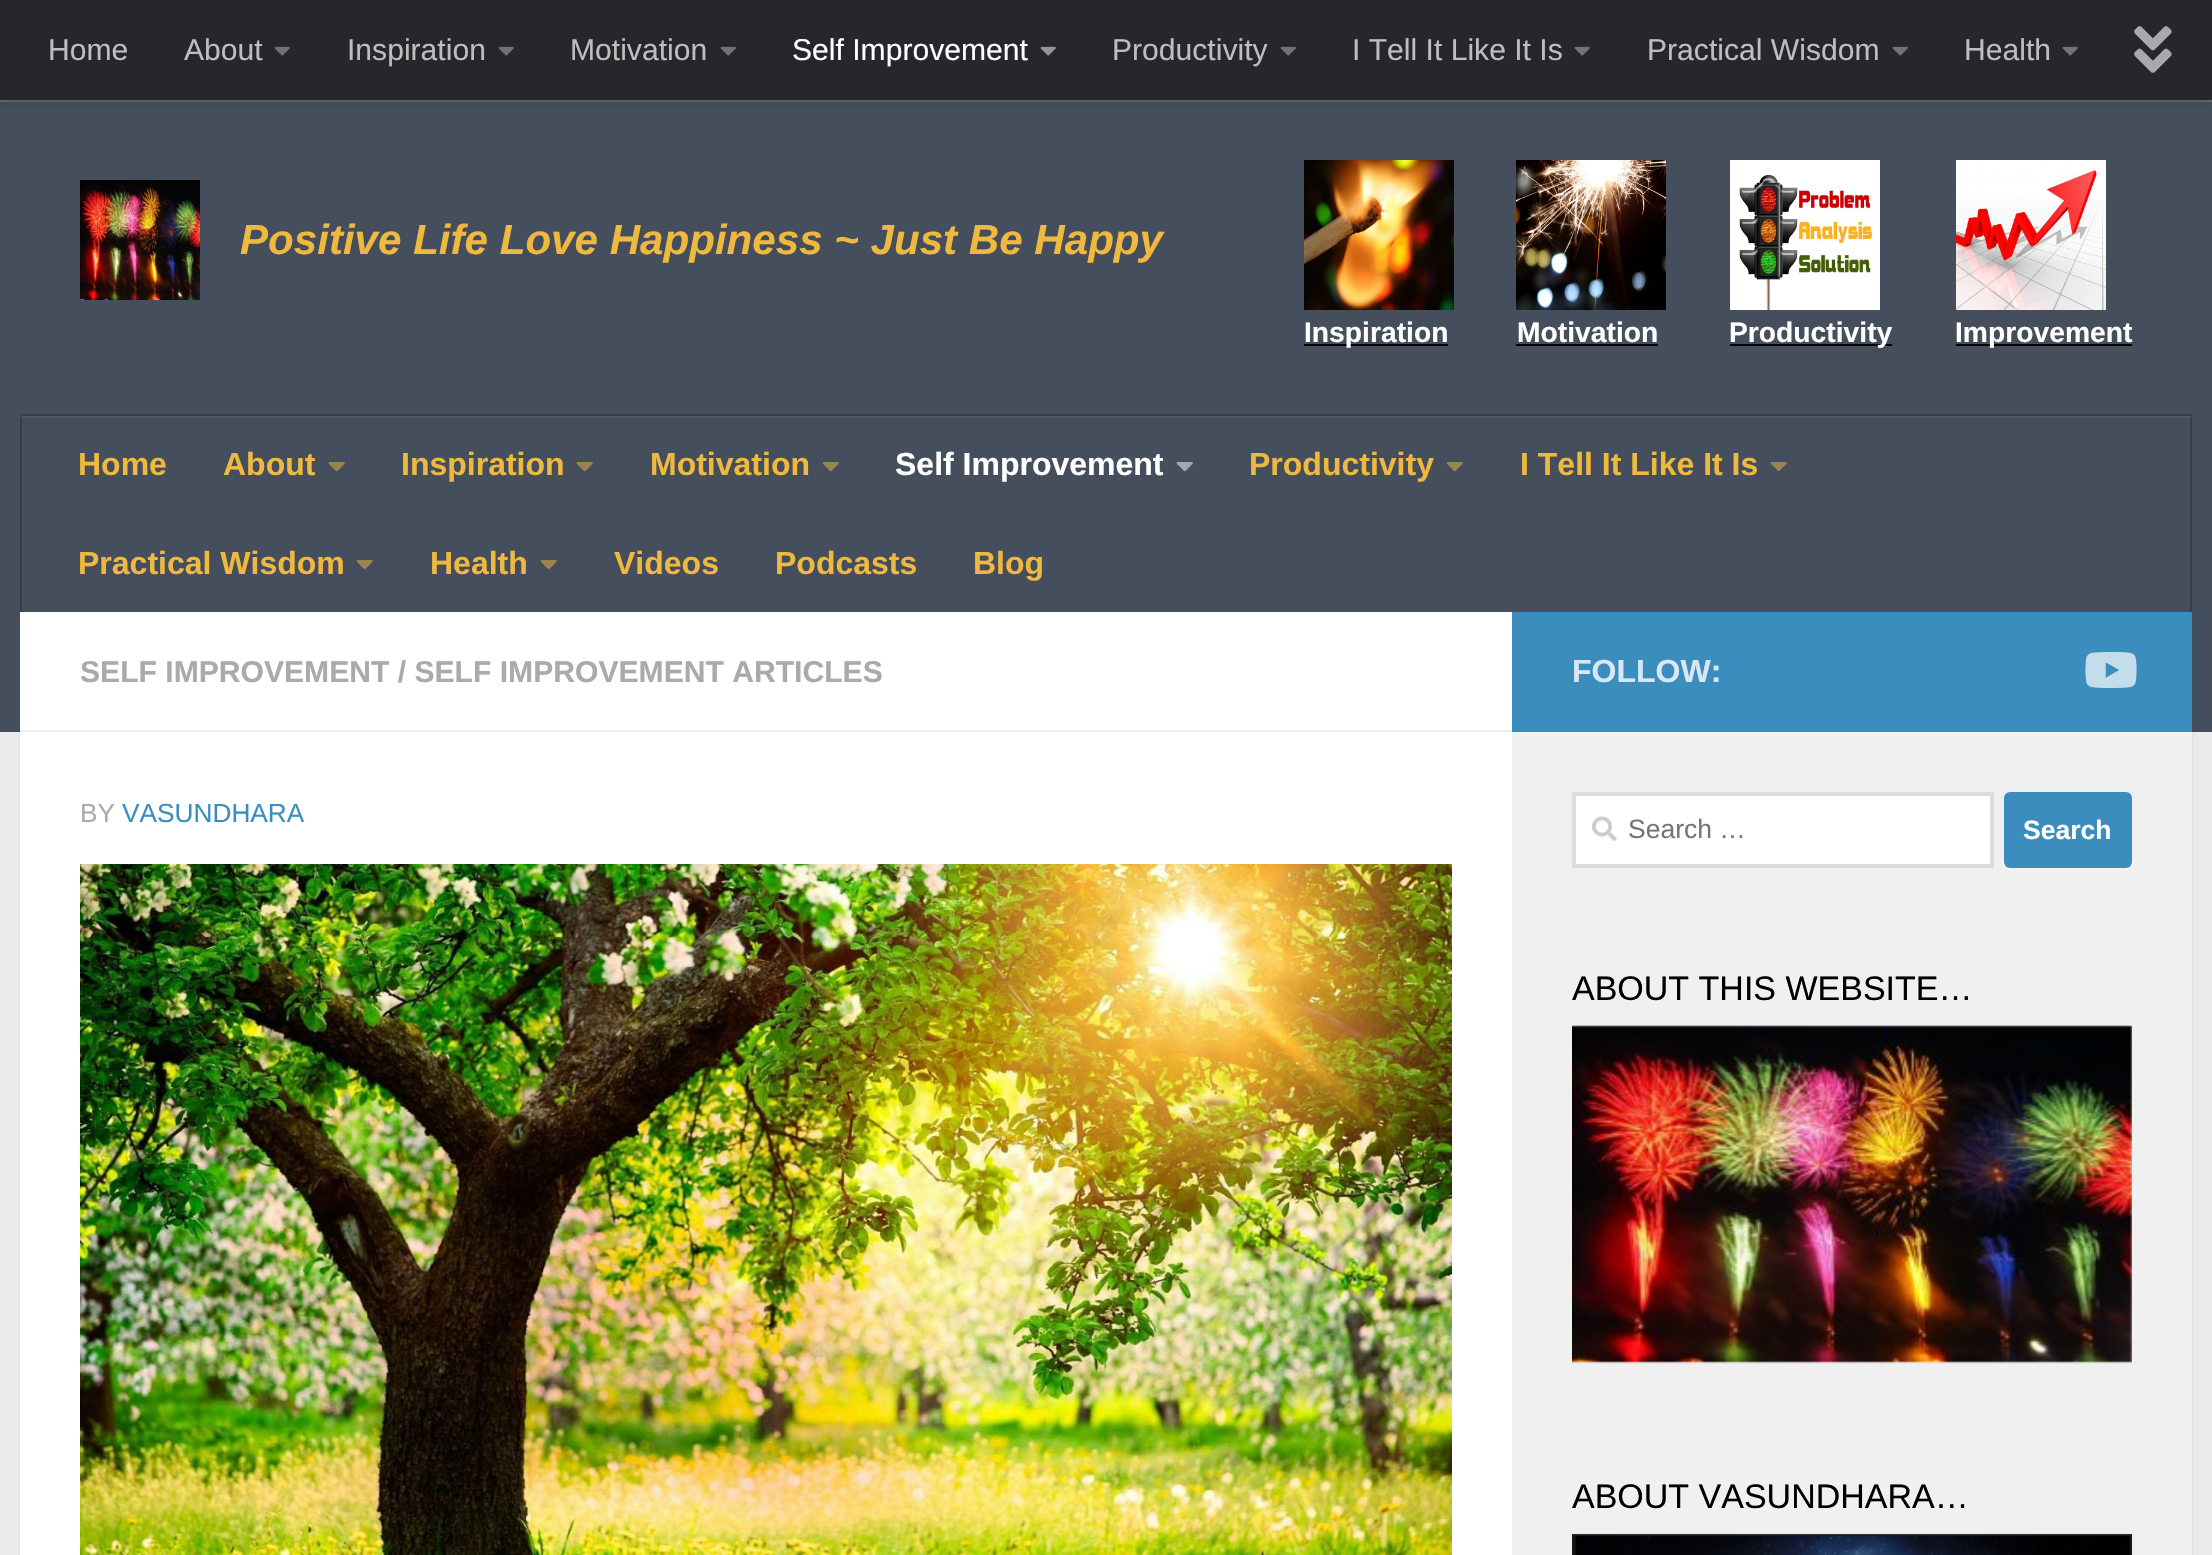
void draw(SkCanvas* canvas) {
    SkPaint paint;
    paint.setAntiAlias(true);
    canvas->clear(0xFFEAEAEA);
    paint.setColor(0x1A000000);
    paint.setMaskFilter(SkMaskFilter::MakeBlur(kNormal_SkBlurStyle, 1));
    canvas->drawRect(SkRect::MakeXYWH(20, 614, 2172, 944), paint);
    paint.setMaskFilter(nullptr);
    paint.setColor(0xFF454E5C);
    canvas->drawRect(SkRect::MakeXYWH(0, 102, 2212, 630), paint);
    paint.setColor(0xFF4E5764);
    canvas->drawRect(SkRect::MakeXYWH(20, 416, 2172, 2), paint);
    paint.setColor(0xFF616974);
    canvas->drawRect(SkRect::MakeXYWH(0, 100, 2212, 2), paint);
    paint.setColor(0x33000000);
    paint.setMaskFilter(SkMaskFilter::MakeBlur(kNormal_SkBlurStyle, 5));
    canvas->drawRect(SkRect::MakeXYWH(0, 0, 2212, 100), paint);
    paint.setMaskFilter(nullptr);
    paint.setColor(0xFF26272B);
    canvas->drawRect(SkRect::MakeXYWH(0, 0, 2212, 100), paint);
    SkFont font1(fontMgr->matchFamilyStyle("Liberation Sans", SkFontStyle::Normal()), 30.1f);
    font1.setSubpixel(true);
    paint.setColor(0xFFBEBEBF);
    canvas->drawString("Home", 48, 60, font1, paint);
    canvas->drawString("About", 184, 60, font1, paint);
    canvas->drawImageRect(SkImages::DeferredFromEncodedData(SkData::MakeFromFileName("img1.png")), SkRect::MakeXYWH(274, 46, 16, 10), SkSamplingOptions());
    canvas->drawString("Inspiration", 347, 60, font1, paint);
    canvas->drawImageRect(SkImages::DeferredFromEncodedData(SkData::MakeFromFileName("img1.png")), SkRect::MakeXYWH(498, 46, 16, 10), SkSamplingOptions());
    canvas->drawString("Motivation", 570, 60, font1, paint);
    canvas->drawImageRect(SkImages::DeferredFromEncodedData(SkData::MakeFromFileName("img1.png")), SkRect::MakeXYWH(720, 46, 16, 10), SkSamplingOptions());
    paint.setColor(0xFFFFFFFF);
    canvas->drawString("Self Improvement", 792, 60, font1, paint);
    canvas->drawImageRect(SkImages::DeferredFromEncodedData(SkData::MakeFromFileName("img2.png")), SkRect::MakeXYWH(1040, 46, 16, 10), SkSamplingOptions());
    paint.setColor(0xFFBEBEBF);
    canvas->drawString("Productivity", 1112, 60, font1, paint);
    canvas->drawImageRect(SkImages::DeferredFromEncodedData(SkData::MakeFromFileName("img1.png")), SkRect::MakeXYWH(1280, 46, 16, 10), SkSamplingOptions());
    canvas->drawString("I Tell It Like It Is", 1352, 60, font1, paint);
    canvas->drawImageRect(SkImages::DeferredFromEncodedData(SkData::MakeFromFileName("img1.png")), SkRect::MakeXYWH(1574, 46, 16, 10), SkSamplingOptions());
    canvas->drawString("Practical Wisdom", 1647, 60, font1, paint);
    canvas->drawImageRect(SkImages::DeferredFromEncodedData(SkData::MakeFromFileName("img1.png")), SkRect::MakeXYWH(1892, 46, 16, 10), SkSamplingOptions());
    canvas->drawString("Health", 1964, 60, font1, paint);
    canvas->drawImageRect(SkImages::DeferredFromEncodedData(SkData::MakeFromFileName("img1.png")), SkRect::MakeXYWH(2062, 46, 16, 10), SkSamplingOptions());
    canvas->drawImageRect(SkImages::DeferredFromEncodedData(SkData::MakeFromFileName("img3.png")), SkRect::MakeXYWH(2134, 26, 38, 47), SkSamplingOptions());
    canvas->drawImageRect(SkImages::DeferredFromEncodedData(SkData::MakeFromFileName("img4.png")), SkRect::MakeXYWH(80, 180, 120, 120), SkSamplingOptions());
    SkFont font2(fontMgr->matchFamilyStyle("Liberation Sans", SkFontStyle::BoldItalic()), 42.1f);
    font2.setSubpixel(true);
    paint.setColor(0xFFEFB93F);
    canvas->drawString("Positive Life Love Happiness ~ Just Be Happy", 240, 254, font2, paint);
    canvas->drawImageRect(SkImages::DeferredFromEncodedData(SkData::MakeFromFileName("img5.png")), SkRect::MakeXYWH(1304, 160, 150, 150), SkSamplingOptions());
    paint.setColor(0xFF000000);
    canvas->drawRect(SkRect::MakeXYWH(1304, 344, 144, 2), paint);
    SkFont font3(fontMgr->matchFamilyStyle("Liberation Sans", SkFontStyle::Bold()), 28.25f);
    font3.setSubpixel(true);
    paint.setColor(0xFFFFFFFF);
    canvas->drawString("Inspiration", 1304, 342, font3, paint);
    canvas->drawImageRect(SkImages::DeferredFromEncodedData(SkData::MakeFromFileName("img6.png")), SkRect::MakeXYWH(1516, 160, 150, 150), SkSamplingOptions());
    canvas->drawString("Motivation", 1517, 342, font3, paint);
    paint.setColor(0xFF000000);
    canvas->drawRect(SkRect::MakeXYWH(1516, 344, 142, 2), paint);
    canvas->drawImageRect(SkImages::DeferredFromEncodedData(SkData::MakeFromFileName("img7.png")), SkRect::MakeXYWH(1730, 160, 150, 150), SkSamplingOptions());
    canvas->drawRect(SkRect::MakeXYWH(1730, 344, 162, 2), paint);
    paint.setColor(0xFFFFFFFF);
    canvas->drawString("Productivity", 1729, 342, font3, paint);
    canvas->drawImageRect(SkImages::DeferredFromEncodedData(SkData::MakeFromFileName("img8.png")), SkRect::MakeXYWH(1956, 160, 150, 150), SkSamplingOptions());
    paint.setColor(0xFF000000);
    canvas->drawRect(SkRect::MakeXYWH(1956, 344, 176, 2), paint);
    paint.setColor(0xFFFFFFFF);
    canvas->drawString("Improvement", 1955, 342, font3, paint);
    paint.setColor(0xFF373E4A);
    canvas->drawRect(SkRect::MakeXYWH(20, 414, 2172, 2), paint);
    canvas->drawRect(SkRect::MakeXYWH(2190, 416, 2, 196), paint);
    paint.setColor(0xFF414853);
    canvas->drawRect(SkRect::MakeXYWH(2190, 416, 2, 2), paint);
    paint.setColor(0xFF373E4A);
    canvas->drawRect(SkRect::MakeXYWH(20, 416, 2, 196), paint);
    paint.setColor(0xFF414853);
    canvas->drawRect(SkRect::MakeXYWH(20, 416, 2, 2), paint);
    SkFont font4(fontMgr->matchFamilyStyle("Liberation Sans", SkFontStyle::Bold()), 32);
    font4.setSubpixel(true);
    paint.setColor(0xFFEFB93F);
    canvas->drawString("Home", 78, 475, font4, paint);
    canvas->drawString("About", 223, 475, font4, paint);
    canvas->drawImageRect(SkImages::DeferredFromEncodedData(SkData::MakeFromFileName("img9.png")), SkRect::MakeXYWH(328, 462, 17, 10), SkSamplingOptions());
    canvas->drawString("Inspiration", 401, 475, font4, paint);
    canvas->drawImageRect(SkImages::DeferredFromEncodedData(SkData::MakeFromFileName("img9.png")), SkRect::MakeXYWH(576, 462, 17, 10), SkSamplingOptions());
    canvas->drawString("Motivation", 650, 475, font4, paint);
    canvas->drawImageRect(SkImages::DeferredFromEncodedData(SkData::MakeFromFileName("img9.png")), SkRect::MakeXYWH(822, 462, 17, 10), SkSamplingOptions());
    paint.setColor(0xFFFFFFFF);
    canvas->drawString("Self Improvement", 895, 475, font4, paint);
    canvas->drawImageRect(SkImages::DeferredFromEncodedData(SkData::MakeFromFileName("img10.png")), SkRect::MakeXYWH(1176, 462, 17, 10), SkSamplingOptions());
    paint.setColor(0xFFEFB93F);
    canvas->drawString("Productivity", 1249, 475, font4, paint);
    canvas->drawImageRect(SkImages::DeferredFromEncodedData(SkData::MakeFromFileName("img9.png")), SkRect::MakeXYWH(1446, 462, 17, 10), SkSamplingOptions());
    canvas->drawString("I Tell It Like It Is", 1520, 475, font4, paint);
    canvas->drawImageRect(SkImages::DeferredFromEncodedData(SkData::MakeFromFileName("img9.png")), SkRect::MakeXYWH(1770, 462, 17, 10), SkSamplingOptions());
    canvas->drawString("Practical Wisdom", 78, 574, font4, paint);
    canvas->drawImageRect(SkImages::DeferredFromEncodedData(SkData::MakeFromFileName("img9.png")), SkRect::MakeXYWH(356, 560, 17, 10), SkSamplingOptions());
    canvas->drawString("Health", 430, 574, font4, paint);
    canvas->drawImageRect(SkImages::DeferredFromEncodedData(SkData::MakeFromFileName("img9.png")), SkRect::MakeXYWH(540, 560, 17, 10), SkSamplingOptions());
    canvas->drawString("Videos", 614, 574, font4, paint);
    canvas->drawString("Podcasts", 775, 574, font4, paint);
    canvas->drawString("Blog", 973, 574, font4, paint);
    paint.setColor(0xFFFFFFFF);
    canvas->drawRect(SkRect::MakeXYWH(20, 612, 1492, 943), paint);
    paint.setColor(0xFFEEEEEE);
    canvas->drawRect(SkRect::MakeXYWH(20, 730, 1492, 2), paint);
    SkFont font5(fontMgr->matchFamilyStyle("Liberation Sans", SkFontStyle::Bold()), 30.1f);
    font5.setSubpixel(true);
    paint.setColor(0xFFAAAAAA);
    canvas->drawString("SELF IMPROVEMENT / SELF IMPROVEMENT ARTICLES", 80, 682, font5, paint);
    SkFont font6(fontMgr->matchFamilyStyle("Liberation Sans", SkFontStyle::Normal()), 26.25f);
    font6.setSubpixel(true);
    canvas->drawString("BY", 80, 822, font6, paint);
    paint.setColor(0xFF3B8DBD);
    canvas->drawString("VASUNDHARA", 122, 822, font6, paint);
    canvas->drawImageRect(SkImages::DeferredFromEncodedData(SkData::MakeFromFileName("img11.png")), SkRect::MakeXYWH(80, 864, 1372, 691), SkSamplingOptions());
    canvas->drawRect(SkRect::MakeXYWH(1512, 612, 680, 120), paint);
    paint.setColor(0xFFD8E8F2);
    canvas->drawString("FOLLOW:", 1572, 682, font4, paint);
    canvas->drawImageRect(SkImages::DeferredFromEncodedData(SkData::MakeFromFileName("img12.png")), SkRect::MakeXYWH(2085, 652, 52, 36), SkSamplingOptions());
    paint.setColor(0xFFF0F0F0);
    canvas->drawRect(SkRect::MakeXYWH(1512, 732, 680, 823), paint);
    paint.setColor(0xFFFFFFFF);
    canvas->drawRect(SkRect::MakeXYWH(1574, 794, 418, 72), paint);
    paint.setStyle(SkPaint::kStroke_Style);
    paint.setStrokeWidth(4);
    paint.setColor(0xFFDDDDDD);
    canvas->drawRect(SkRect::MakeXYWH(1574, 794, 418, 72), paint);
    canvas->drawImageRect(SkImages::DeferredFromEncodedData(SkData::MakeFromFileName("img13.png")), SkRect::MakeXYWH(1592, 816, 25, 25), SkSamplingOptions());
    SkFont font7(fontMgr->matchFamilyStyle("Liberation Sans", SkFontStyle::Normal()), 26.5f);
    font7.setSubpixel(true);
    paint.setStyle(SkPaint::kFill_Style);
    paint.setColor(0xFF757575);
    canvas->drawString("Search …", 1628, 838, font7, paint);
    paint.setColor(0xFF3B8DBD);
    canvas->drawRoundRect(SkRect::MakeXYWH(2004, 792, 128, 76), 6, 6, paint);
    SkFont font8(fontMgr->matchFamilyStyle("Liberation Sans", SkFontStyle::Bold()), 26.5f);
    font8.setSubpixel(true);
    paint.setColor(0xFFFFFFFF);
    canvas->drawString("Search", 2023, 839, font8, paint);
    SkFont font9(fontMgr->matchFamilyStyle("Liberation Sans", SkFontStyle::Normal()), 34);
    font9.setSubpixel(true);
    paint.setColor(0xFF000000);
    canvas->drawString("ABOUT THIS WEBSITE…", 1572, 1000, font9, paint);
    canvas->drawImageRect(SkImages::DeferredFromEncodedData(SkData::MakeFromFileName("img14.png")), SkRect::MakeXYWH(1572, 1025, 560, 339), SkSamplingOptions());
    canvas->drawString("ABOUT VASUNDHARA…", 1572, 1508, font9, paint);
    canvas->drawImageRect(SkImages::DeferredFromEncodedData(SkData::MakeFromFileName("img15.png")), SkRect::MakeXYWH(1572, 1533, 560, 22), SkSamplingOptions());
}
